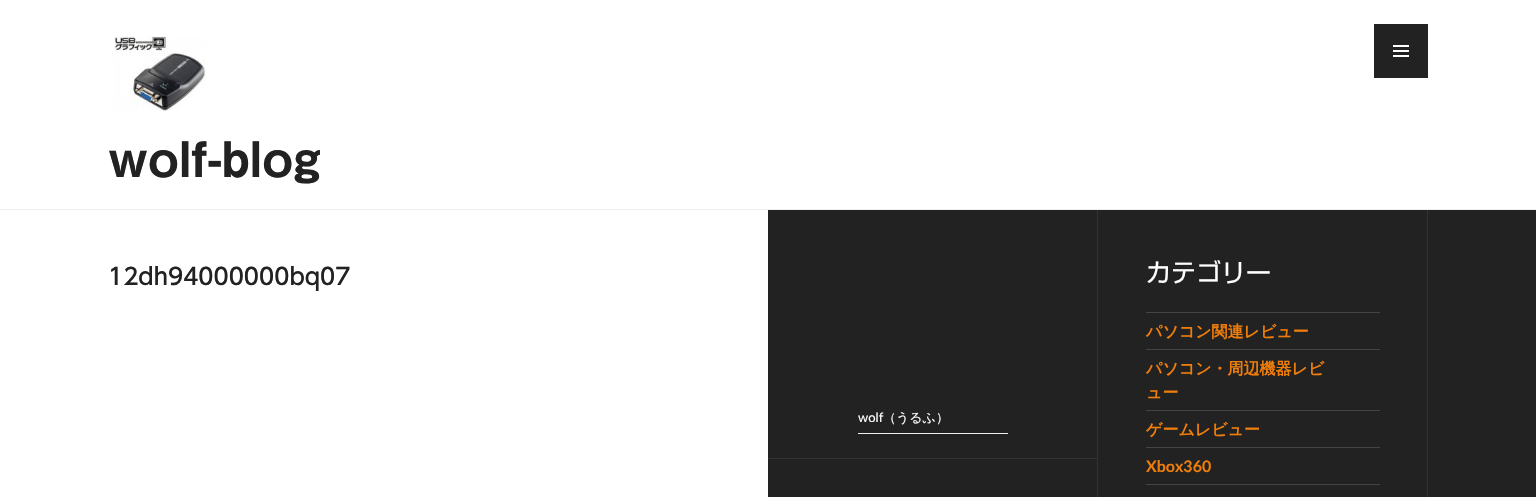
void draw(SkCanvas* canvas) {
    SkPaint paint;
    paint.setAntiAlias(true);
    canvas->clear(0xFFFFFFFF);
    paint.setColor(0xFF222222);
    canvas->drawRect(SkRect::MakeXYWH(1374, 24, 54, 54), paint);
    canvas->drawImageRect(SkImages::DeferredFromEncodedData(SkData::MakeFromFileName("img1.png")), SkRect::MakeXYWH(1393, 45, 16, 12), SkSamplingOptions());
    paint.setColor(0xFFEEEEEE);
    canvas->drawRect(SkRect::MakeXYWH(0, 209, 1536, 1), paint);
    canvas->drawImageRect(SkImages::DeferredFromEncodedData(SkData::MakeFromFileName("img2.png")), SkRect::MakeXYWH(114, 36, 92, 75), SkSamplingOptions());
    SkFont font1(fontMgr->matchFamilyStyle("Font", SkFontStyle(600, SkFontStyle::kNormal_Width, SkFontStyle::kUpright_Slant)), 49);
    font1.setSubpixel(true);
    paint.setColor(0xFF222222);
    canvas->drawString("wolf-blog", 108, 177, font1, paint);
    canvas->drawRect(SkRect::MakeXYWH(768, 210, 768, 287), paint);
    SkFont font2(fontMgr->matchFamilyStyle("Font", SkFontStyle(500, SkFontStyle::kNormal_Width, SkFontStyle::kUpright_Slant)), 23);
    font2.setSubpixel(true);
    canvas->drawString("12dh94000000bq07", 108, 285, font2, paint);
    paint.setColor(0xFF333333);
    canvas->drawRect(SkRect::MakeXYWH(768, 458, 330, 1), paint);
    paint.setColor(0xFFEEEEEE);
    canvas->drawRect(SkRect::MakeXYWH(858, 433, 150, 1), paint);
    SkFont font3(fontMgr->matchFamilyStyle("Lato", SkFontStyle::Normal()), 13);
    font3.setSubpixel(true);
    paint.setColor(0xFFFFFFFF);
    canvas->drawString("wolf", 858, 422, font3, paint);
    SkFont font4(fontMgr->matchFamilyStyle("WenQuanYi Zen Hei", SkFontStyle(500, SkFontStyle::kNormal_Width, SkFontStyle::kUpright_Slant)), 13);
    font4.setSubpixel(true);
    canvas->drawString("（うるふ）", 883, 422, font4, paint);
    paint.setColor(0xFF333333);
    canvas->drawRect(SkRect::MakeXYWH(1097, 210, 1, 287), paint);
    SkFont font5(fontMgr->matchFamilyStyle("Font", SkFontStyle::Normal()), 25);
    font5.setSubpixel(true);
    paint.setColor(0xFFFFFFFF);
    canvas->drawString("カテゴリー", 1146, 282, font5, paint);
    paint.setColor(0xFF444444);
    canvas->drawRect(SkRect::MakeXYWH(1146, 312, 234, 1), paint);
    SkFont font6(fontMgr->matchFamilyStyle("WenQuanYi Zen Hei", SkFontStyle::Bold()), 16);
    font6.setSubpixel(true);
    paint.setColor(0xFFEF7D0B);
    canvas->drawString("パソコン関連レビュー", 1146, 337, font6, paint);
    paint.setColor(0xFF444444);
    canvas->drawRect(SkRect::MakeXYWH(1146, 349, 234, 1), paint);
    paint.setColor(0xFFEF7D0B);
    canvas->drawString("パソコン・周辺機器レビ", 1146, 374, font6, paint);
    canvas->drawString("ュー", 1146, 398, font6, paint);
    paint.setColor(0xFF444444);
    canvas->drawRect(SkRect::MakeXYWH(1146, 410, 234, 1), paint);
    paint.setColor(0xFFEF7D0B);
    canvas->drawString("ゲームレビュー", 1146, 435, font6, paint);
    paint.setColor(0xFF444444);
    canvas->drawRect(SkRect::MakeXYWH(1146, 447, 234, 1), paint);
    SkFont font7(fontMgr->matchFamilyStyle("Lato", SkFontStyle::Bold()), 16);
    font7.setSubpixel(true);
    paint.setColor(0xFFEF7D0B);
    canvas->drawString("Xbox360", 1146, 472, font7, paint);
    paint.setColor(0xFF444444);
    canvas->drawRect(SkRect::MakeXYWH(1146, 484, 234, 1), paint);
    paint.setColor(0xFF333333);
    canvas->drawRect(SkRect::MakeXYWH(1427, 210, 1, 287), paint);
}
